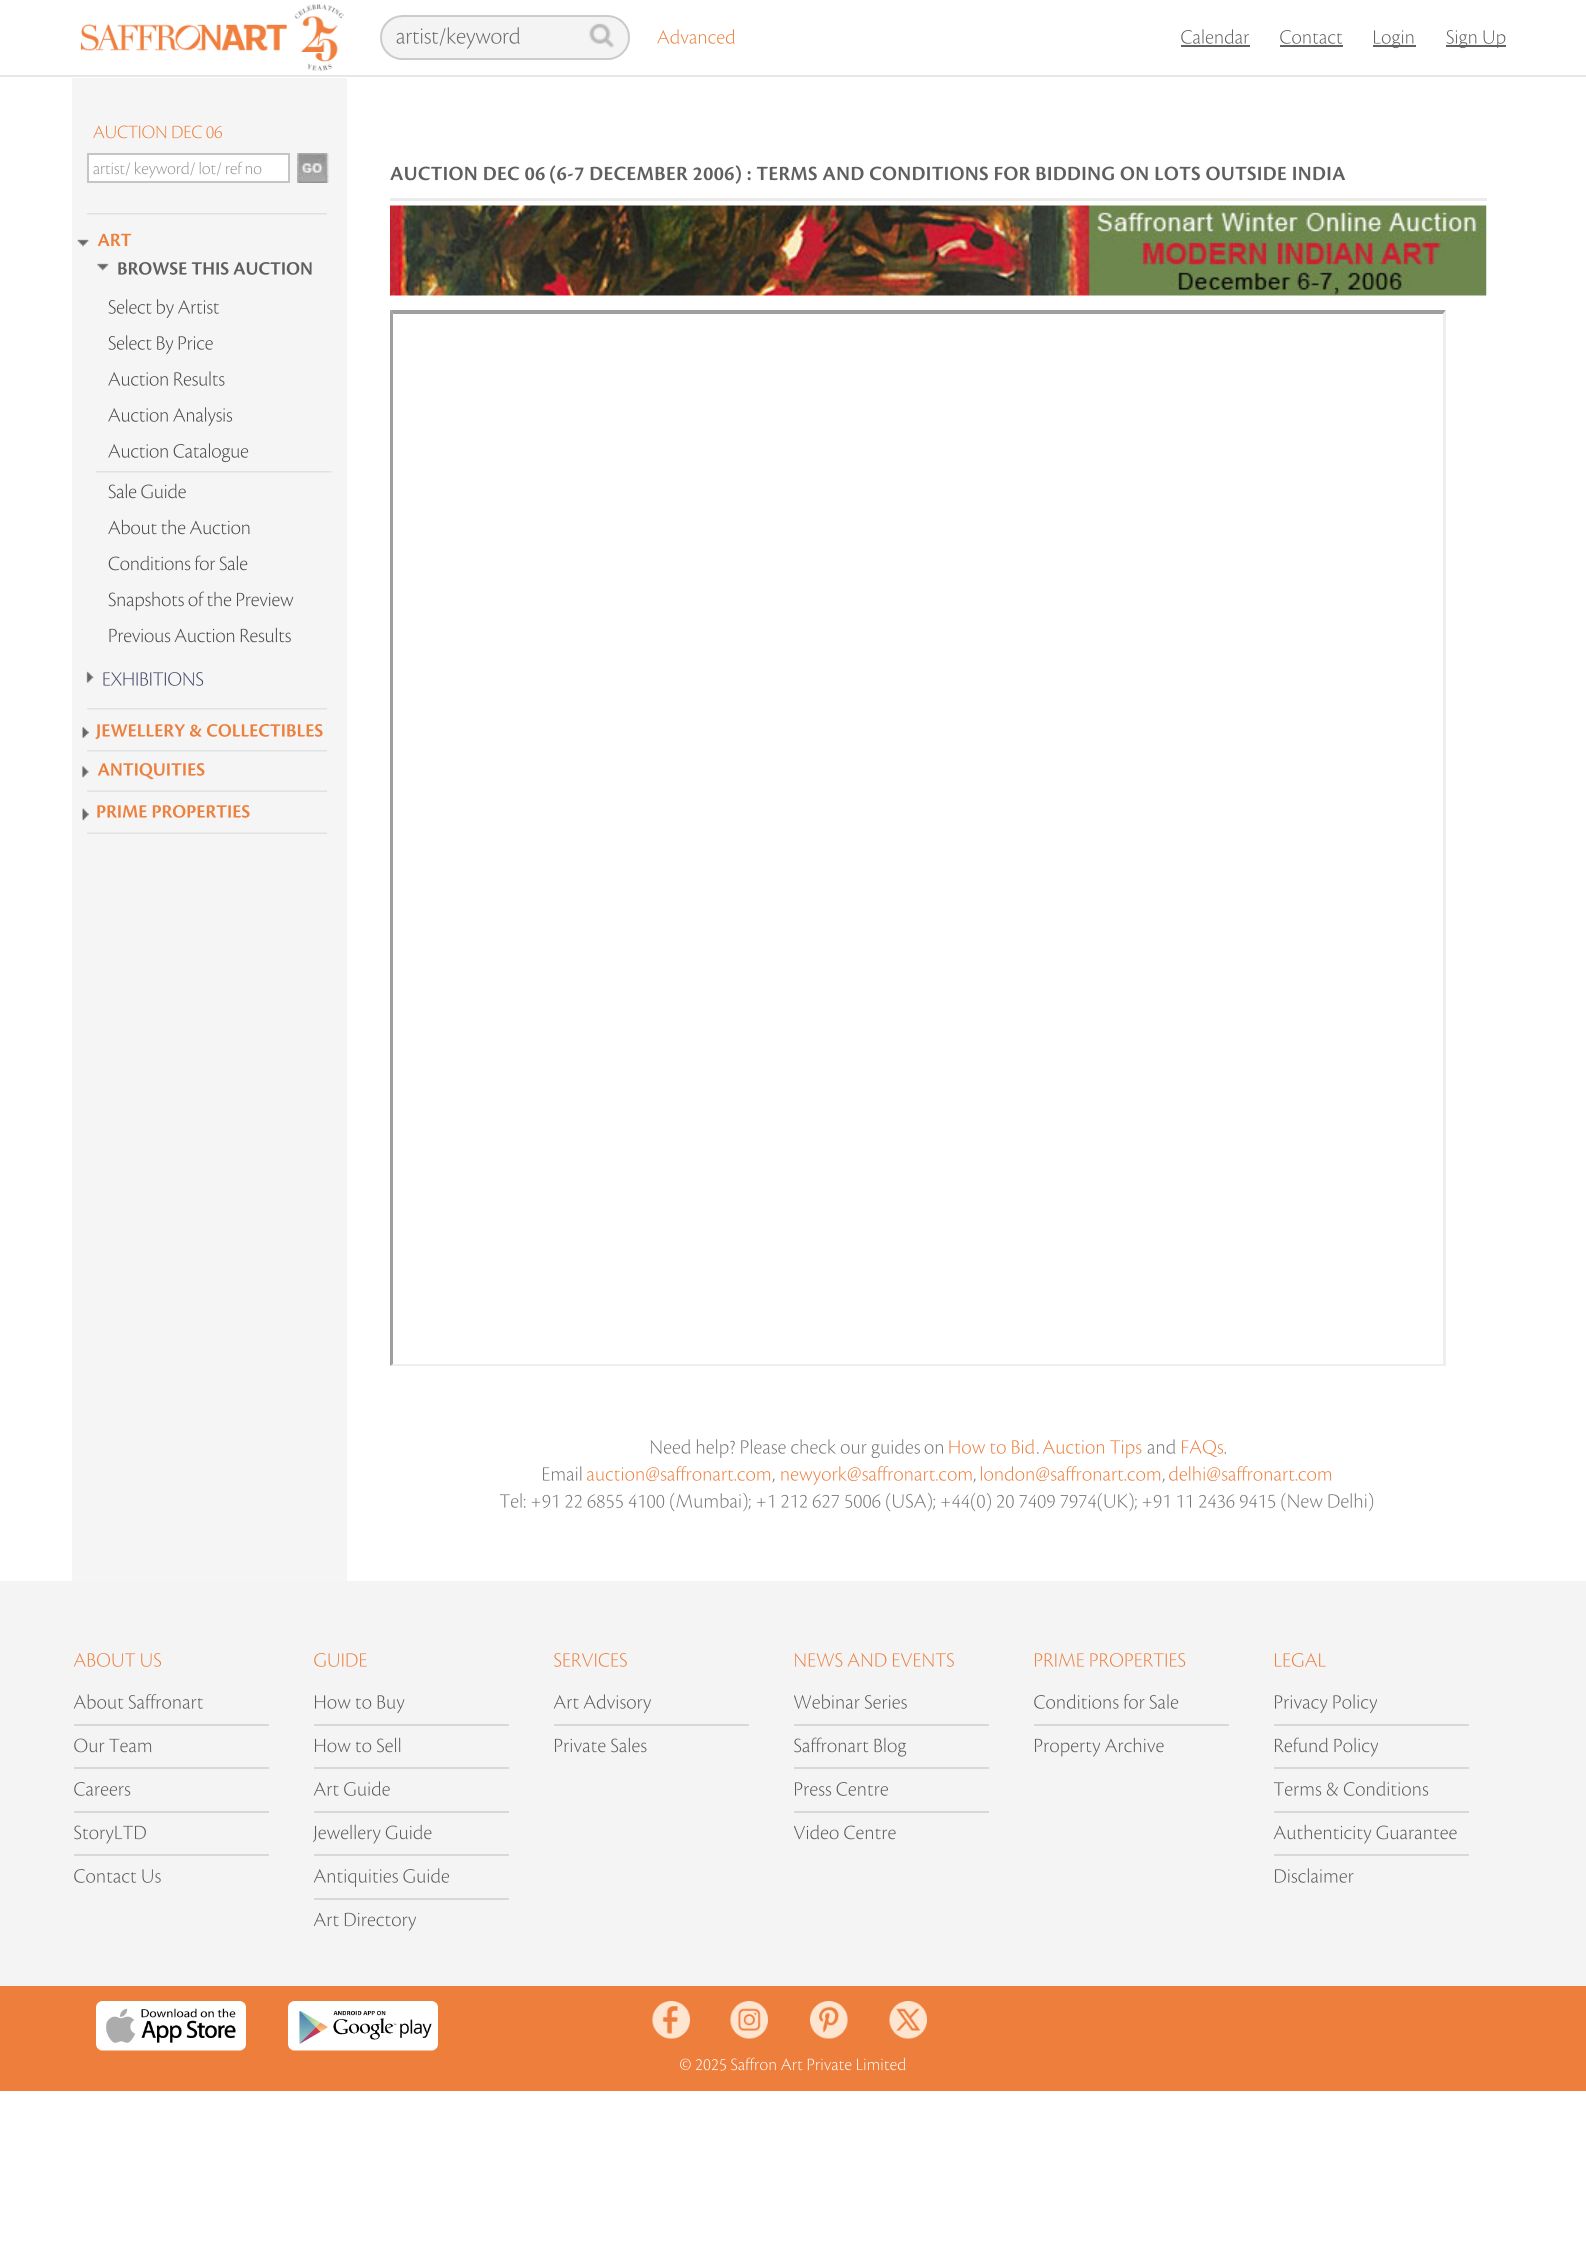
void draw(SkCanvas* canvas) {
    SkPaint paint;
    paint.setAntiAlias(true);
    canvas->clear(0xFFFFFFFF);
    paint.setColor(0xFFE7E7E7);
    canvas->drawRect(SkRect::MakeXYWH(0, 75, 1586, 2), paint);
    canvas->drawImageRect(SkImages::DeferredFromEncodedData(SkData::MakeFromFileName("img1.png")), SkRect::MakeXYWH(81, 4, 263, 67), SkSamplingOptions());
    paint.setColor(0xFFF4F4F4);
    canvas->drawRoundRect(SkRect::MakeXYWH(381, 16, 248, 43), 21.5f, 21.5f, paint);
    paint.setStyle(SkPaint::kStroke_Style);
    paint.setStrokeWidth(2);
    paint.setColor(0xFFCCCCCC);
    canvas->drawRoundRect(SkRect::MakeXYWH(381, 16, 248, 43), 21.5f, 21.5f, paint);
    canvas->drawImageRect(SkImages::DeferredFromEncodedData(SkData::MakeFromFileName("img2.png")), SkRect::MakeXYWH(396, 27, 124, 22), SkSamplingOptions());
    canvas->drawImageRect(SkImages::DeferredFromEncodedData(SkData::MakeFromFileName("img3.png")), SkRect::MakeXYWH(589, 23, 25, 25), SkSamplingOptions());
    canvas->drawImageRect(SkImages::DeferredFromEncodedData(SkData::MakeFromFileName("img4.png")), SkRect::MakeXYWH(657, 29, 78, 15), SkSamplingOptions());
    canvas->drawImageRect(SkImages::DeferredFromEncodedData(SkData::MakeFromFileName("img5.png")), SkRect::MakeXYWH(1181, 29, 68, 15), SkSamplingOptions());
    paint.setStyle(SkPaint::kFill_Style);
    paint.setColor(0xFF616161);
    canvas->drawRect(SkRect::MakeXYWH(1181, 45, 69, 2), paint);
    canvas->drawImageRect(SkImages::DeferredFromEncodedData(SkData::MakeFromFileName("img6.png")), SkRect::MakeXYWH(1280, 30, 63, 14), SkSamplingOptions());
    canvas->drawRect(SkRect::MakeXYWH(1280, 45, 63, 2), paint);
    canvas->drawRect(SkRect::MakeXYWH(1373, 45, 43, 2), paint);
    canvas->drawImageRect(SkImages::DeferredFromEncodedData(SkData::MakeFromFileName("img7.png")), SkRect::MakeXYWH(1373, 30, 41, 19), SkSamplingOptions());
    canvas->drawRect(SkRect::MakeXYWH(1446, 45, 60, 2), paint);
    canvas->drawImageRect(SkImages::DeferredFromEncodedData(SkData::MakeFromFileName("img8.png")), SkRect::MakeXYWH(1446, 30, 60, 19), SkSamplingOptions());
    paint.setColor(0xFFF5F5F5);
    canvas->drawRect(SkRect::MakeXYWH(72, 78, 275, 1503), paint);
    canvas->drawImageRect(SkImages::DeferredFromEncodedData(SkData::MakeFromFileName("img9.png")), SkRect::MakeXYWH(93, 125, 129, 14), SkSamplingOptions());
    paint.setColor(0xFFFFFFFF);
    canvas->drawRect(SkRect::MakeXYWH(88, 154, 201, 28), paint);
    paint.setStyle(SkPaint::kStroke_Style);
    paint.setColor(0xFFC6C4C7);
    canvas->drawRect(SkRect::MakeXYWH(88, 154, 201, 28), paint);
    canvas->drawImageRect(SkImages::DeferredFromEncodedData(SkData::MakeFromFileName("img10.png")), SkRect::MakeXYWH(93, 161, 169, 17), SkSamplingOptions());
    canvas->drawImageRect(SkImages::DeferredFromEncodedData(SkData::MakeFromFileName("img11.png")), SkRect::MakeXYWH(297, 153, 32, 30), SkSamplingOptions());
    canvas->drawImageRect(SkImages::DeferredFromEncodedData(SkData::MakeFromFileName("img12.png")), SkRect::MakeXYWH(87, 213, 240, 2), SkSamplingOptions());
    canvas->drawImageRect(SkImages::DeferredFromEncodedData(SkData::MakeFromFileName("img13.png")), SkRect::MakeXYWH(77, 239, 12, 8), SkSamplingOptions());
    canvas->drawImageRect(SkImages::DeferredFromEncodedData(SkData::MakeFromFileName("img14.png")), SkRect::MakeXYWH(97, 233, 35, 14), SkSamplingOptions());
    canvas->drawImageRect(SkImages::DeferredFromEncodedData(SkData::MakeFromFileName("img15.png")), SkRect::MakeXYWH(97, 263, 12, 8), SkSamplingOptions());
    canvas->drawImageRect(SkImages::DeferredFromEncodedData(SkData::MakeFromFileName("img16.png")), SkRect::MakeXYWH(118, 262, 194, 13), SkSamplingOptions());
    canvas->drawImageRect(SkImages::DeferredFromEncodedData(SkData::MakeFromFileName("img17.png")), SkRect::MakeXYWH(108, 299, 111, 20), SkSamplingOptions());
    canvas->drawImageRect(SkImages::DeferredFromEncodedData(SkData::MakeFromFileName("img18.png")), SkRect::MakeXYWH(108, 335, 105, 20), SkSamplingOptions());
    canvas->drawImageRect(SkImages::DeferredFromEncodedData(SkData::MakeFromFileName("img19.png")), SkRect::MakeXYWH(108, 371, 117, 15), SkSamplingOptions());
    canvas->drawImageRect(SkImages::DeferredFromEncodedData(SkData::MakeFromFileName("img20.png")), SkRect::MakeXYWH(108, 407, 125, 19), SkSamplingOptions());
    canvas->drawImageRect(SkImages::DeferredFromEncodedData(SkData::MakeFromFileName("img21.png")), SkRect::MakeXYWH(108, 443, 141, 20), SkSamplingOptions());
    canvas->drawImageRect(SkImages::DeferredFromEncodedData(SkData::MakeFromFileName("img22.png")), SkRect::MakeXYWH(96, 471, 236, 2), SkSamplingOptions());
    canvas->drawImageRect(SkImages::DeferredFromEncodedData(SkData::MakeFromFileName("img23.png")), SkRect::MakeXYWH(108, 483, 78, 16), SkSamplingOptions());
    canvas->drawImageRect(SkImages::DeferredFromEncodedData(SkData::MakeFromFileName("img24.png")), SkRect::MakeXYWH(108, 519, 142, 16), SkSamplingOptions());
    canvas->drawImageRect(SkImages::DeferredFromEncodedData(SkData::MakeFromFileName("img25.png")), SkRect::MakeXYWH(108, 555, 140, 16), SkSamplingOptions());
    canvas->drawImageRect(SkImages::DeferredFromEncodedData(SkData::MakeFromFileName("img26.png")), SkRect::MakeXYWH(108, 591, 186, 20), SkSamplingOptions());
    canvas->drawImageRect(SkImages::DeferredFromEncodedData(SkData::MakeFromFileName("img27.png")), SkRect::MakeXYWH(109, 627, 182, 16), SkSamplingOptions());
    canvas->drawImageRect(SkImages::DeferredFromEncodedData(SkData::MakeFromFileName("img28.png")), SkRect::MakeXYWH(86, 671, 8, 12), SkSamplingOptions());
    canvas->drawImageRect(SkImages::DeferredFromEncodedData(SkData::MakeFromFileName("img29.png")), SkRect::MakeXYWH(103, 672, 101, 14), SkSamplingOptions());
    canvas->drawImageRect(SkImages::DeferredFromEncodedData(SkData::MakeFromFileName("img12.png")), SkRect::MakeXYWH(87, 708, 240, 2), SkSamplingOptions());
    canvas->drawImageRect(SkImages::DeferredFromEncodedData(SkData::MakeFromFileName("img30.png")), SkRect::MakeXYWH(82, 727, 7, 11), SkSamplingOptions());
    canvas->drawImageRect(SkImages::DeferredFromEncodedData(SkData::MakeFromFileName("img31.png")), SkRect::MakeXYWH(95, 724, 228, 15), SkSamplingOptions());
    canvas->drawImageRect(SkImages::DeferredFromEncodedData(SkData::MakeFromFileName("img12.png")), SkRect::MakeXYWH(87, 750, 240, 2), SkSamplingOptions());
    canvas->drawImageRect(SkImages::DeferredFromEncodedData(SkData::MakeFromFileName("img32.png")), SkRect::MakeXYWH(82, 766, 7, 12), SkSamplingOptions());
    canvas->drawImageRect(SkImages::DeferredFromEncodedData(SkData::MakeFromFileName("img33.png")), SkRect::MakeXYWH(97, 763, 108, 17), SkSamplingOptions());
    canvas->drawImageRect(SkImages::DeferredFromEncodedData(SkData::MakeFromFileName("img34.png")), SkRect::MakeXYWH(87, 790, 240, 2), SkSamplingOptions());
    canvas->drawImageRect(SkImages::DeferredFromEncodedData(SkData::MakeFromFileName("img35.png")), SkRect::MakeXYWH(82, 808, 7, 13), SkSamplingOptions());
    canvas->drawImageRect(SkImages::DeferredFromEncodedData(SkData::MakeFromFileName("img36.png")), SkRect::MakeXYWH(97, 805, 153, 13), SkSamplingOptions());
    canvas->drawImageRect(SkImages::DeferredFromEncodedData(SkData::MakeFromFileName("img34.png")), SkRect::MakeXYWH(87, 832, 240, 2), SkSamplingOptions());
    canvas->drawImageRect(SkImages::DeferredFromEncodedData(SkData::MakeFromFileName("img37.png")), SkRect::MakeXYWH(390, 166, 155, 15), SkSamplingOptions());
    canvas->drawImageRect(SkImages::DeferredFromEncodedData(SkData::MakeFromFileName("img38.png")), SkRect::MakeXYWH(550, 165, 796, 19), SkSamplingOptions());
    paint.setStyle(SkPaint::kFill_Style);
    paint.setColor(0xFFEBEBE9);
    canvas->drawRect(SkRect::MakeXYWH(390, 198, 1097, 3), paint);
    canvas->drawImageRect(SkImages::DeferredFromEncodedData(SkData::MakeFromFileName("img39.png")), SkRect::MakeXYWH(390, 205, 1097, 91), SkSamplingOptions());
    paint.setColor(0xFF9F9F9F);
    canvas->drawPath(SkPathBuilder().moveTo(390, 310).lineTo(1446, 310).lineTo(1443, 314).lineTo(393, 314).close().detach(), paint);
    paint.setColor(0xFFEEEEEE);
    canvas->drawPath(SkPathBuilder().moveTo(1446, 310).lineTo(1446, 1366).lineTo(1443, 1364).lineTo(1443, 314).close().detach(), paint);
    canvas->drawPath(SkPathBuilder().moveTo(1446, 1366).lineTo(390, 1366).lineTo(393, 1364).lineTo(1443, 1364).close().detach(), paint);
    paint.setColor(0xFF9F9F9F);
    canvas->drawPath(SkPathBuilder().moveTo(390, 1366).lineTo(390, 310).lineTo(393, 314).lineTo(393, 1364).close().detach(), paint);
    canvas->drawImageRect(SkImages::DeferredFromEncodedData(SkData::MakeFromFileName("img40.png")), SkRect::MakeXYWH(650, 1439, 270, 20), SkSamplingOptions());
    canvas->drawImageRect(SkImages::DeferredFromEncodedData(SkData::MakeFromFileName("img41.png")), SkRect::MakeXYWH(924, 1444, 19, 10), SkSamplingOptions());
    canvas->drawImageRect(SkImages::DeferredFromEncodedData(SkData::MakeFromFileName("img42.png")), SkRect::MakeXYWH(949, 1439, 86, 15), SkSamplingOptions());
    canvas->drawImageRect(SkImages::DeferredFromEncodedData(SkData::MakeFromFileName("img43.png")), SkRect::MakeXYWH(1037, 1452, 2, 2), SkSamplingOptions());
    canvas->drawImageRect(SkImages::DeferredFromEncodedData(SkData::MakeFromFileName("img44.png")), SkRect::MakeXYWH(1042, 1440, 100, 18), SkSamplingOptions());
    canvas->drawImageRect(SkImages::DeferredFromEncodedData(SkData::MakeFromFileName("img45.png")), SkRect::MakeXYWH(1147, 1439, 29, 15), SkSamplingOptions());
    canvas->drawImageRect(SkImages::DeferredFromEncodedData(SkData::MakeFromFileName("img46.png")), SkRect::MakeXYWH(1181, 1440, 43, 17), SkSamplingOptions());
    canvas->drawImageRect(SkImages::DeferredFromEncodedData(SkData::MakeFromFileName("img47.png")), SkRect::MakeXYWH(1224, 1452, 2, 2), SkSamplingOptions());
    canvas->drawImageRect(SkImages::DeferredFromEncodedData(SkData::MakeFromFileName("img48.png")), SkRect::MakeXYWH(543, 1466, 39, 15), SkSamplingOptions());
    canvas->drawImageRect(SkImages::DeferredFromEncodedData(SkData::MakeFromFileName("img49.png")), SkRect::MakeXYWH(587, 1466, 184, 16), SkSamplingOptions());
    canvas->drawImageRect(SkImages::DeferredFromEncodedData(SkData::MakeFromFileName("img50.png")), SkRect::MakeXYWH(772, 1478, 3, 5), SkSamplingOptions());
    canvas->drawImageRect(SkImages::DeferredFromEncodedData(SkData::MakeFromFileName("img51.png")), SkRect::MakeXYWH(781, 1466, 191, 20), SkSamplingOptions());
    canvas->drawImageRect(SkImages::DeferredFromEncodedData(SkData::MakeFromFileName("img50.png")), SkRect::MakeXYWH(973, 1478, 3, 5), SkSamplingOptions());
    canvas->drawImageRect(SkImages::DeferredFromEncodedData(SkData::MakeFromFileName("img52.png")), SkRect::MakeXYWH(980, 1466, 181, 16), SkSamplingOptions());
    canvas->drawImageRect(SkImages::DeferredFromEncodedData(SkData::MakeFromFileName("img50.png")), SkRect::MakeXYWH(1162, 1478, 3, 5), SkSamplingOptions());
    canvas->drawImageRect(SkImages::DeferredFromEncodedData(SkData::MakeFromFileName("img53.png")), SkRect::MakeXYWH(1169, 1466, 163, 16), SkSamplingOptions());
    canvas->drawImageRect(SkImages::DeferredFromEncodedData(SkData::MakeFromFileName("img54.png")), SkRect::MakeXYWH(499, 1492, 638, 20), SkSamplingOptions());
    canvas->drawImageRect(SkImages::DeferredFromEncodedData(SkData::MakeFromFileName("img55.png")), SkRect::MakeXYWH(1142, 1492, 232, 20), SkSamplingOptions());
    paint.setColor(0xFFF4F4F4);
    canvas->drawRect(SkRect::MakeXYWH(0, 1581, 1586, 405), paint);
    canvas->drawImageRect(SkImages::DeferredFromEncodedData(SkData::MakeFromFileName("img56.png")), SkRect::MakeXYWH(73, 1653, 88, 14), SkSamplingOptions());
    paint.setColor(0xFFD8D8D8);
    canvas->drawRect(SkRect::MakeXYWH(74, 1724, 195, 2), paint);
    canvas->drawImageRect(SkImages::DeferredFromEncodedData(SkData::MakeFromFileName("img57.png")), SkRect::MakeXYWH(73, 1694, 130, 15), SkSamplingOptions());
    canvas->drawRect(SkRect::MakeXYWH(74, 1767, 195, 2), paint);
    canvas->drawImageRect(SkImages::DeferredFromEncodedData(SkData::MakeFromFileName("img58.png")), SkRect::MakeXYWH(74, 1738, 78, 15), SkSamplingOptions());
    canvas->drawRect(SkRect::MakeXYWH(74, 1811, 195, 2), paint);
    canvas->drawImageRect(SkImages::DeferredFromEncodedData(SkData::MakeFromFileName("img59.png")), SkRect::MakeXYWH(74, 1782, 57, 14), SkSamplingOptions());
    canvas->drawRect(SkRect::MakeXYWH(74, 1854, 195, 2), paint);
    canvas->drawImageRect(SkImages::DeferredFromEncodedData(SkData::MakeFromFileName("img60.png")), SkRect::MakeXYWH(74, 1825, 72, 19), SkSamplingOptions());
    canvas->drawImageRect(SkImages::DeferredFromEncodedData(SkData::MakeFromFileName("img61.png")), SkRect::MakeXYWH(74, 1869, 87, 14), SkSamplingOptions());
    canvas->drawImageRect(SkImages::DeferredFromEncodedData(SkData::MakeFromFileName("img62.png")), SkRect::MakeXYWH(314, 1653, 53, 14), SkSamplingOptions());
    canvas->drawRect(SkRect::MakeXYWH(314, 1724, 195, 2), paint);
    canvas->drawImageRect(SkImages::DeferredFromEncodedData(SkData::MakeFromFileName("img63.png")), SkRect::MakeXYWH(314, 1695, 91, 19), SkSamplingOptions());
    canvas->drawRect(SkRect::MakeXYWH(314, 1767, 195, 2), paint);
    canvas->drawImageRect(SkImages::DeferredFromEncodedData(SkData::MakeFromFileName("img64.png")), SkRect::MakeXYWH(314, 1737, 87, 16), SkSamplingOptions());
    canvas->drawRect(SkRect::MakeXYWH(314, 1811, 195, 2), paint);
    canvas->drawImageRect(SkImages::DeferredFromEncodedData(SkData::MakeFromFileName("img65.png")), SkRect::MakeXYWH(313, 1781, 77, 15), SkSamplingOptions());
    canvas->drawRect(SkRect::MakeXYWH(314, 1854, 195, 2), paint);
    canvas->drawImageRect(SkImages::DeferredFromEncodedData(SkData::MakeFromFileName("img66.png")), SkRect::MakeXYWH(312, 1824, 120, 20), SkSamplingOptions());
    canvas->drawRect(SkRect::MakeXYWH(314, 1898, 195, 2), paint);
    canvas->drawImageRect(SkImages::DeferredFromEncodedData(SkData::MakeFromFileName("img67.png")), SkRect::MakeXYWH(313, 1868, 136, 19), SkSamplingOptions());
    canvas->drawImageRect(SkImages::DeferredFromEncodedData(SkData::MakeFromFileName("img68.png")), SkRect::MakeXYWH(313, 1912, 103, 19), SkSamplingOptions());
    canvas->drawImageRect(SkImages::DeferredFromEncodedData(SkData::MakeFromFileName("img69.png")), SkRect::MakeXYWH(554, 1653, 73, 14), SkSamplingOptions());
    canvas->drawRect(SkRect::MakeXYWH(554, 1724, 195, 2), paint);
    canvas->drawImageRect(SkImages::DeferredFromEncodedData(SkData::MakeFromFileName("img70.png")), SkRect::MakeXYWH(553, 1694, 98, 20), SkSamplingOptions());
    canvas->drawImageRect(SkImages::DeferredFromEncodedData(SkData::MakeFromFileName("img71.png")), SkRect::MakeXYWH(554, 1737, 93, 16), SkSamplingOptions());
    canvas->drawImageRect(SkImages::DeferredFromEncodedData(SkData::MakeFromFileName("img72.png")), SkRect::MakeXYWH(794, 1653, 160, 14), SkSamplingOptions());
    canvas->drawRect(SkRect::MakeXYWH(794, 1724, 195, 2), paint);
    canvas->drawImageRect(SkImages::DeferredFromEncodedData(SkData::MakeFromFileName("img73.png")), SkRect::MakeXYWH(794, 1694, 113, 15), SkSamplingOptions());
    canvas->drawRect(SkRect::MakeXYWH(794, 1767, 195, 2), paint);
    canvas->drawImageRect(SkImages::DeferredFromEncodedData(SkData::MakeFromFileName("img74.png")), SkRect::MakeXYWH(794, 1737, 113, 20), SkSamplingOptions());
    canvas->drawRect(SkRect::MakeXYWH(794, 1811, 195, 2), paint);
    canvas->drawImageRect(SkImages::DeferredFromEncodedData(SkData::MakeFromFileName("img75.png")), SkRect::MakeXYWH(794, 1782, 94, 14), SkSamplingOptions());
    canvas->drawImageRect(SkImages::DeferredFromEncodedData(SkData::MakeFromFileName("img76.png")), SkRect::MakeXYWH(794, 1824, 102, 16), SkSamplingOptions());
    canvas->drawImageRect(SkImages::DeferredFromEncodedData(SkData::MakeFromFileName("img77.png")), SkRect::MakeXYWH(1034, 1653, 152, 14), SkSamplingOptions());
    canvas->drawRect(SkRect::MakeXYWH(1034, 1724, 195, 2), paint);
    canvas->drawImageRect(SkImages::DeferredFromEncodedData(SkData::MakeFromFileName("img78.png")), SkRect::MakeXYWH(1034, 1694, 145, 15), SkSamplingOptions());
    canvas->drawImageRect(SkImages::DeferredFromEncodedData(SkData::MakeFromFileName("img79.png")), SkRect::MakeXYWH(1034, 1737, 130, 20), SkSamplingOptions());
    canvas->drawImageRect(SkImages::DeferredFromEncodedData(SkData::MakeFromFileName("img80.png")), SkRect::MakeXYWH(1274, 1653, 52, 14), SkSamplingOptions());
    canvas->drawRect(SkRect::MakeXYWH(1274, 1724, 195, 2), paint);
    canvas->drawImageRect(SkImages::DeferredFromEncodedData(SkData::MakeFromFileName("img81.png")), SkRect::MakeXYWH(1274, 1694, 103, 20), SkSamplingOptions());
    canvas->drawRect(SkRect::MakeXYWH(1274, 1767, 195, 2), paint);
    canvas->drawImageRect(SkImages::DeferredFromEncodedData(SkData::MakeFromFileName("img82.png")), SkRect::MakeXYWH(1274, 1737, 104, 20), SkSamplingOptions());
    canvas->drawRect(SkRect::MakeXYWH(1274, 1811, 195, 2), paint);
    canvas->drawImageRect(SkImages::DeferredFromEncodedData(SkData::MakeFromFileName("img83.png")), SkRect::MakeXYWH(1273, 1781, 156, 15), SkSamplingOptions());
    canvas->drawRect(SkRect::MakeXYWH(1274, 1854, 195, 2), paint);
    canvas->drawImageRect(SkImages::DeferredFromEncodedData(SkData::MakeFromFileName("img84.png")), SkRect::MakeXYWH(1273, 1824, 184, 20), SkSamplingOptions());
    canvas->drawImageRect(SkImages::DeferredFromEncodedData(SkData::MakeFromFileName("img85.png")), SkRect::MakeXYWH(1275, 1868, 79, 15), SkSamplingOptions());
    paint.setColor(0xFFEE7E3C);
    canvas->drawRect(SkRect::MakeXYWH(0, 1986, 1586, 105), paint);
    canvas->drawImageRect(SkImages::DeferredFromEncodedData(SkData::MakeFromFileName("img86.png")), SkRect::MakeXYWH(96, 2001, 150, 50), SkSamplingOptions());
    canvas->drawImageRect(SkImages::DeferredFromEncodedData(SkData::MakeFromFileName("img87.png")), SkRect::MakeXYWH(288, 2001, 150, 50), SkSamplingOptions());
    canvas->drawImageRect(SkImages::DeferredFromEncodedData(SkData::MakeFromFileName("img88.png")), SkRect::MakeXYWH(652, 2001, 38, 38), SkSamplingOptions());
    canvas->drawImageRect(SkImages::DeferredFromEncodedData(SkData::MakeFromFileName("img89.png")), SkRect::MakeXYWH(730, 2001, 38, 38), SkSamplingOptions());
    canvas->drawImageRect(SkImages::DeferredFromEncodedData(SkData::MakeFromFileName("img90.png")), SkRect::MakeXYWH(810, 2001, 38, 38), SkSamplingOptions());
    canvas->drawImageRect(SkImages::DeferredFromEncodedData(SkData::MakeFromFileName("img91.png")), SkRect::MakeXYWH(889, 2001, 38, 38), SkSamplingOptions());
    canvas->drawImageRect(SkImages::DeferredFromEncodedData(SkData::MakeFromFileName("img92.png")), SkRect::MakeXYWH(680, 2057, 226, 14), SkSamplingOptions());
}
